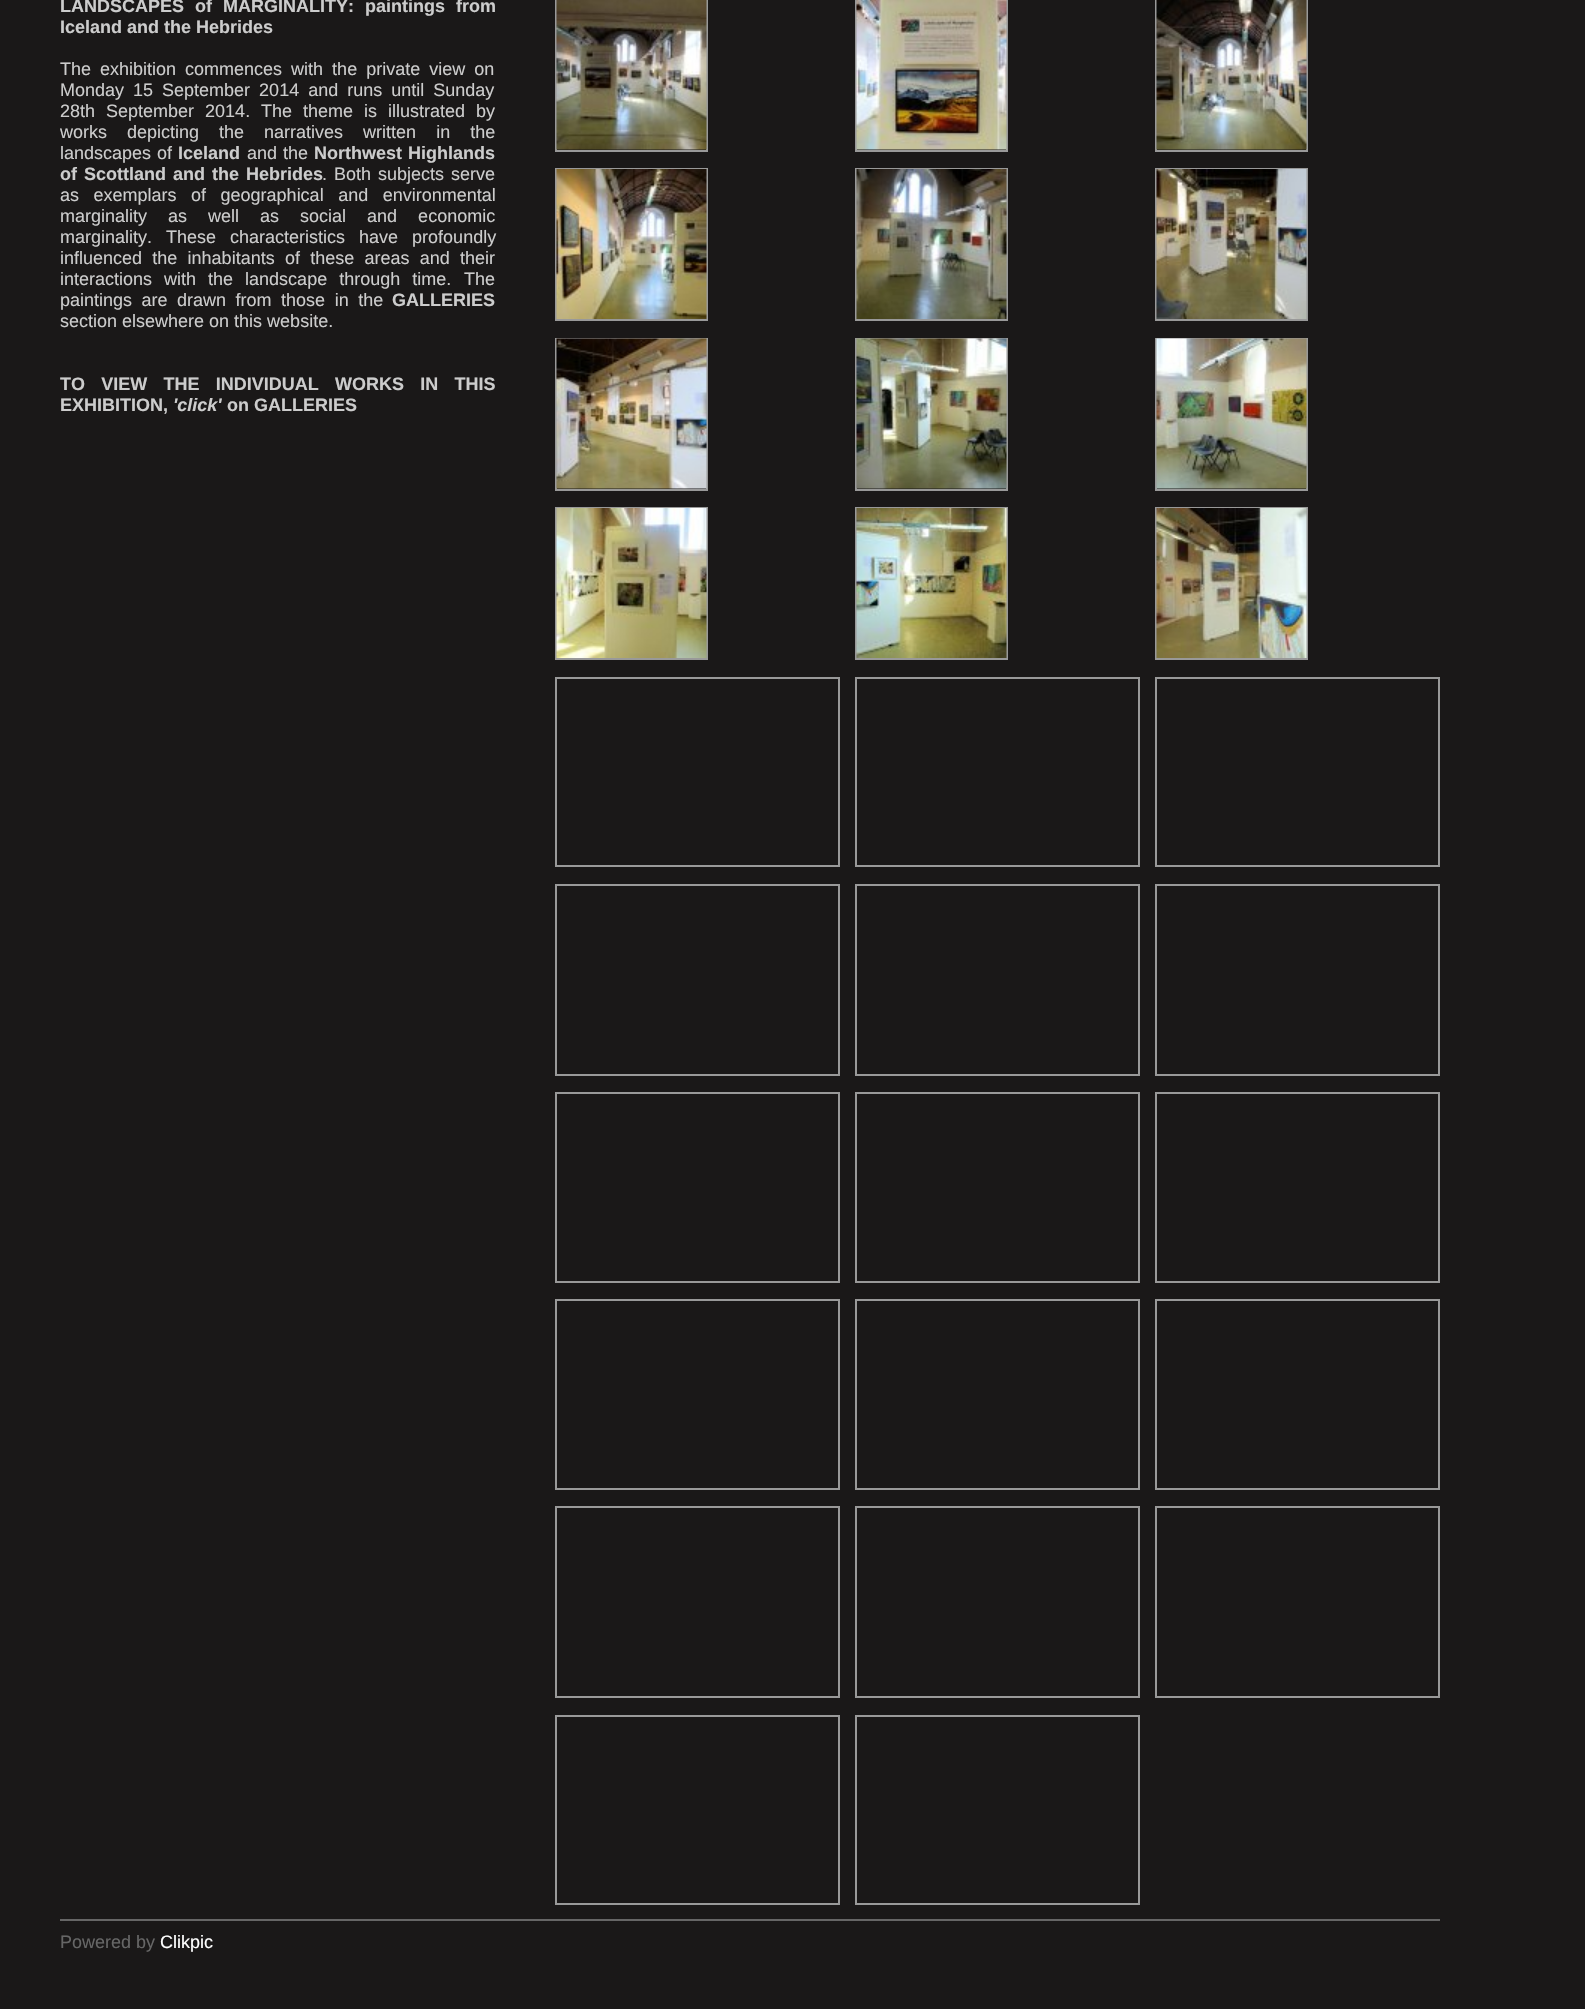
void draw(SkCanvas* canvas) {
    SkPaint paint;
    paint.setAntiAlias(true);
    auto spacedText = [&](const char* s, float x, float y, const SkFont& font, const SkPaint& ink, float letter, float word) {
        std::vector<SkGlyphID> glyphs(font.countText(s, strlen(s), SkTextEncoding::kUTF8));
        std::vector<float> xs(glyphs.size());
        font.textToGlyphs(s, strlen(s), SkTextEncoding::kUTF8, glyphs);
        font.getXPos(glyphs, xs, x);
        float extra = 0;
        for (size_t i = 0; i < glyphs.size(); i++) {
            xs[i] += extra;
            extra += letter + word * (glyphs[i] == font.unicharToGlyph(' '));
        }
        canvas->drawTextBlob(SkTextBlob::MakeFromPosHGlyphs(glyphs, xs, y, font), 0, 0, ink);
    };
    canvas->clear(0xFF1A1818);
    SkFont font1(fontMgr->matchFamilyStyle("Liberation Sans", SkFontStyle::Bold()), 18);
    font1.setSubpixel(true);
    paint.setColor(0xFFCCCCCC);
    spacedText("LANDSCAPES of MARGINALITY: paintings from", 60, 12, font1, paint, 0, 6);
    canvas->drawString("Iceland and the Hebrides", 60, 33, font1, paint);
    SkFont font2(fontMgr->matchFamilyStyle("Liberation Sans", SkFontStyle::Normal()), 18);
    font2.setSubpixel(true);
    spacedText("The exhibition commences with the private view on", 60, 75, font2, paint, 0, 4);
    spacedText("Monday 15 September 2014 and runs until Sunday", 60, 96, font2, paint, 0, 4);
    spacedText("28th September 2014.", 60, 117, font2, paint, 0, 6);
    spacedText("The theme is illustrated by", 261, 117, font2, paint, 0, 6);
    spacedText("works depicting the narratives written in the", 60, 138, font2, paint, 0, 15);
    spacedText("landscapes of", 60, 159, font2, paint, 0, 1);
    canvas->drawString("Iceland", 178, 159, font1, paint);
    spacedText("and the", 247, 159, font2, paint, 0, 1);
    spacedText("Northwest Highlands", 314, 159, font1, paint, 0, 1);
    spacedText("of Scottland and the Hebrides", 60, 180, font1, paint, 0, 2);
    canvas->drawString(".", 322, 180, font2, paint);
    spacedText("Both subjects serve", 334, 180, font2, paint, 0, 2);
    spacedText("as exemplars of geographical and environmental", 60, 201, font2, paint, 0, 9.5f);
    spacedText("marginality as well as social and economic", 60, 222, font2, paint, 0, 16);
    canvas->drawString("marginality.", 60, 243, font2, paint);
    spacedText("These characteristics have profoundly", 166, 243, font2, paint, 0, 9);
    spacedText("influenced the inhabitants of these areas and their", 60, 264, font2, paint, 0, 5.25f);
    spacedText("interactions with the landscape through time.", 60, 285, font2, paint, 0, 7);
    canvas->drawString("The", 464, 285, font2, paint);
    spacedText("paintings are drawn from those in the", 60, 306, font2, paint, 0, 4.5f);
    canvas->drawString("GALLERIES", 392, 306, font1, paint);
    canvas->drawString("section elsewhere on this website.", 60, 327, font2, paint);
    spacedText("TO VIEW THE INDIVIDUAL WORKS IN THIS", 60, 390, font1, paint, 0, 11.25f);
    canvas->drawString("EXHIBITION,", 60, 411, font1, paint);
    SkFont font3(fontMgr->matchFamilyStyle("Liberation Sans", SkFontStyle::BoldItalic()), 18);
    font3.setSubpixel(true);
    canvas->drawString("'click'", 173, 411, font3, paint);
    canvas->drawString("on GALLERIES", 227, 411, font1, paint);
    paint.setStyle(SkPaint::kStroke_Style);
    paint.setStrokeWidth(2);
    paint.setColor(0xFF999999);
    canvas->drawRect(SkRect::MakeXYWH(556, 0, 151, 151), paint);
    canvas->drawImageRect(SkImages::DeferredFromEncodedData(SkData::MakeFromFileName("img1.png")), SkRect::MakeXYWH(556, 0, 151, 150), SkSamplingOptions());
    canvas->drawRect(SkRect::MakeXYWH(856, 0, 151, 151), paint);
    canvas->drawImageRect(SkImages::DeferredFromEncodedData(SkData::MakeFromFileName("img2.png")), SkRect::MakeXYWH(856, 0, 151, 150), SkSamplingOptions());
    canvas->drawRect(SkRect::MakeXYWH(1156, 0, 151, 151), paint);
    canvas->drawImageRect(SkImages::DeferredFromEncodedData(SkData::MakeFromFileName("img3.png")), SkRect::MakeXYWH(1156, 0, 151, 150), SkSamplingOptions());
    canvas->drawRect(SkRect::MakeXYWH(556, 169, 151, 151), paint);
    canvas->drawImageRect(SkImages::DeferredFromEncodedData(SkData::MakeFromFileName("img4.png")), SkRect::MakeXYWH(556, 169, 151, 150), SkSamplingOptions());
    canvas->drawRect(SkRect::MakeXYWH(856, 169, 151, 151), paint);
    canvas->drawImageRect(SkImages::DeferredFromEncodedData(SkData::MakeFromFileName("img5.png")), SkRect::MakeXYWH(856, 169, 151, 150), SkSamplingOptions());
    canvas->drawRect(SkRect::MakeXYWH(1156, 169, 151, 151), paint);
    canvas->drawImageRect(SkImages::DeferredFromEncodedData(SkData::MakeFromFileName("img6.png")), SkRect::MakeXYWH(1156, 169, 151, 150), SkSamplingOptions());
    canvas->drawRect(SkRect::MakeXYWH(556, 339, 151, 151), paint);
    canvas->drawImageRect(SkImages::DeferredFromEncodedData(SkData::MakeFromFileName("img7.png")), SkRect::MakeXYWH(556, 338, 151, 151), SkSamplingOptions());
    canvas->drawRect(SkRect::MakeXYWH(856, 339, 151, 151), paint);
    canvas->drawImageRect(SkImages::DeferredFromEncodedData(SkData::MakeFromFileName("img8.png")), SkRect::MakeXYWH(856, 338, 151, 151), SkSamplingOptions());
    canvas->drawRect(SkRect::MakeXYWH(1156, 339, 151, 151), paint);
    canvas->drawImageRect(SkImages::DeferredFromEncodedData(SkData::MakeFromFileName("img9.png")), SkRect::MakeXYWH(1156, 338, 151, 151), SkSamplingOptions());
    canvas->drawRect(SkRect::MakeXYWH(556, 508, 151, 151), paint);
    canvas->drawImageRect(SkImages::DeferredFromEncodedData(SkData::MakeFromFileName("img10.png")), SkRect::MakeXYWH(556, 508, 151, 150), SkSamplingOptions());
    canvas->drawRect(SkRect::MakeXYWH(856, 508, 151, 151), paint);
    canvas->drawImageRect(SkImages::DeferredFromEncodedData(SkData::MakeFromFileName("img11.png")), SkRect::MakeXYWH(856, 508, 151, 150), SkSamplingOptions());
    canvas->drawRect(SkRect::MakeXYWH(1156, 508, 151, 151), paint);
    canvas->drawImageRect(SkImages::DeferredFromEncodedData(SkData::MakeFromFileName("img12.png")), SkRect::MakeXYWH(1156, 508, 151, 150), SkSamplingOptions());
    canvas->drawRect(SkRect::MakeXYWH(556, 678, 283, 188), paint);
    canvas->drawRect(SkRect::MakeXYWH(856, 678, 283, 188), paint);
    canvas->drawRect(SkRect::MakeXYWH(1156, 678, 283, 188), paint);
    canvas->drawRect(SkRect::MakeXYWH(556, 885, 283, 190), paint);
    canvas->drawRect(SkRect::MakeXYWH(856, 885, 283, 190), paint);
    canvas->drawRect(SkRect::MakeXYWH(1156, 885, 283, 190), paint);
    canvas->drawRect(SkRect::MakeXYWH(556, 1093, 283, 189), paint);
    canvas->drawRect(SkRect::MakeXYWH(856, 1093, 283, 189), paint);
    canvas->drawRect(SkRect::MakeXYWH(1156, 1093, 283, 189), paint);
    canvas->drawRect(SkRect::MakeXYWH(556, 1300, 283, 189), paint);
    canvas->drawRect(SkRect::MakeXYWH(856, 1300, 283, 189), paint);
    canvas->drawRect(SkRect::MakeXYWH(1156, 1300, 283, 189), paint);
    canvas->drawRect(SkRect::MakeXYWH(556, 1507, 283, 190), paint);
    canvas->drawRect(SkRect::MakeXYWH(856, 1507, 283, 190), paint);
    canvas->drawRect(SkRect::MakeXYWH(1156, 1507, 283, 190), paint);
    canvas->drawRect(SkRect::MakeXYWH(556, 1716, 283, 188), paint);
    canvas->drawRect(SkRect::MakeXYWH(856, 1716, 283, 188), paint);
    paint.setStyle(SkPaint::kFill_Style);
    paint.setColor(0xFF666666);
    canvas->drawRect(SkRect::MakeXYWH(60, 1919, 1380, 2), paint);
    canvas->drawString("Powered by", 60, 1948, font2, paint);
    paint.setColor(0xFFFFFFFF);
    canvas->drawString("Clikpic", 160, 1948, font2, paint);
}
